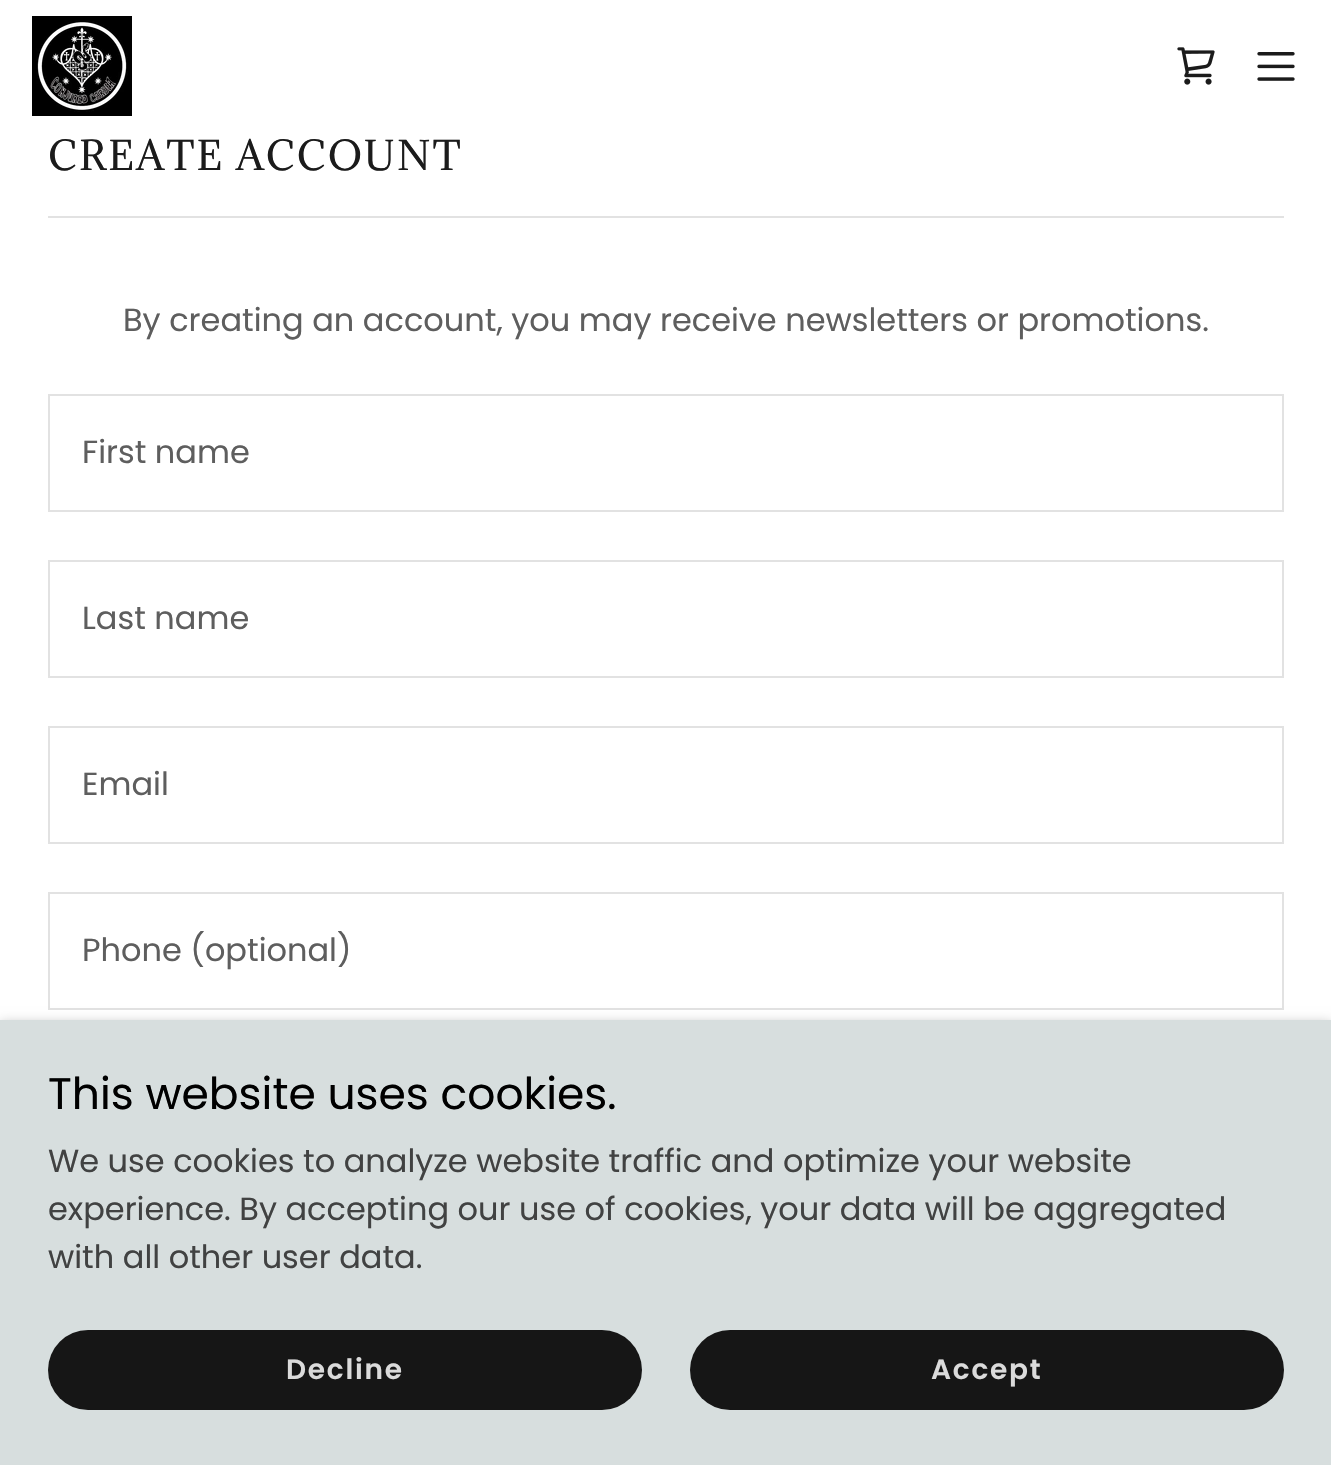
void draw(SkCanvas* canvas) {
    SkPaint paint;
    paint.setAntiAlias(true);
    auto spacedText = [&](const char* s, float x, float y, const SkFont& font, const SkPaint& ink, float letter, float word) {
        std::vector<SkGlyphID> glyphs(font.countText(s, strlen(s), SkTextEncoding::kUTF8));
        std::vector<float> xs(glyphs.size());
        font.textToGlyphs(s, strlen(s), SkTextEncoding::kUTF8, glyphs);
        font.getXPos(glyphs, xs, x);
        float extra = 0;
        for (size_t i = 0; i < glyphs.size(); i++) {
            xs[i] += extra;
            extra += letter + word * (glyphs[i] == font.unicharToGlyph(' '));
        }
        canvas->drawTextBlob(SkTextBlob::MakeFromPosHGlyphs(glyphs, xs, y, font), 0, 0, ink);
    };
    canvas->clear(0xFFFFFFFF);
    canvas->drawImageRect(SkImages::DeferredFromEncodedData(SkData::MakeFromFileName("img1.png")), SkRect::MakeXYWH(32, 16, 100, 100), SkSamplingOptions());
    canvas->drawImageRect(SkImages::DeferredFromEncodedData(SkData::MakeFromFileName("img2.png")), SkRect::MakeXYWH(1177, 47, 38, 38), SkSamplingOptions());
    canvas->drawImageRect(SkImages::DeferredFromEncodedData(SkData::MakeFromFileName("img3.png")), SkRect::MakeXYWH(1257, 52, 38, 29), SkSamplingOptions());
    SkFont font1(fontMgr->matchFamilyStyle("Adamina", SkFontStyle::Normal()), 38);
    font1.setSubpixel(true);
    paint.setColor(0xFF1B1B1B);
    spacedText("CREATE ACCOUNT", 48, 170, font1, paint, 2, 0);
    paint.setColor(0xFFE2E2E2);
    canvas->drawRect(SkRect::MakeXYWH(48, 216, 1236, 2), paint);
    SkFont font2(fontMgr->matchFamilyStyle("Poppins", SkFontStyle::Normal()), 32);
    font2.setSubpixel(true);
    paint.setColor(0xFF5E5E5E);
    canvas->drawString("By creating an account, you may receive newsletters or promotions.", 123, 331, font2, paint);
    paint.setStyle(SkPaint::kStroke_Style);
    paint.setStrokeWidth(2);
    paint.setColor(0xFFE2E2E2);
    canvas->drawRect(SkRect::MakeXYWH(49, 395, 1234, 116), paint);
    paint.setStyle(SkPaint::kFill_Style);
    paint.setColor(0xFF5E5E5E);
    canvas->drawString("First name", 82, 463, font2, paint);
    paint.setStyle(SkPaint::kStroke_Style);
    paint.setColor(0xFFE2E2E2);
    canvas->drawRect(SkRect::MakeXYWH(49, 561, 1234, 116), paint);
    paint.setStyle(SkPaint::kFill_Style);
    paint.setColor(0xFF5E5E5E);
    canvas->drawString("Last name", 82, 629, font2, paint);
    paint.setStyle(SkPaint::kStroke_Style);
    paint.setColor(0xFFE2E2E2);
    canvas->drawRect(SkRect::MakeXYWH(49, 727, 1234, 116), paint);
    paint.setStyle(SkPaint::kFill_Style);
    paint.setColor(0xFF5E5E5E);
    canvas->drawString("Email", 82, 795, font2, paint);
    paint.setStyle(SkPaint::kStroke_Style);
    paint.setColor(0xFFE2E2E2);
    canvas->drawRect(SkRect::MakeXYWH(49, 893, 1234, 116), paint);
    paint.setStyle(SkPaint::kFill_Style);
    paint.setColor(0xFF5E5E5E);
    canvas->drawString("Phone (optional)", 82, 961, font2, paint);
    paint.setColor(0x4D000000);
    paint.setMaskFilter(SkMaskFilter::MakeBlur(kNormal_SkBlurStyle, 6));
    canvas->drawRect(SkRect::MakeXYWH(0, 1024, 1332, 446), paint);
    paint.setMaskFilter(nullptr);
    paint.setColor(0xFFD7DEDE);
    canvas->drawRect(SkRect::MakeXYWH(0, 1020, 1331, 445), paint);
    SkFont font3(fontMgr->matchFamilyStyle("Poppins", SkFontStyle::Normal()), 44);
    font3.setSubpixel(true);
    paint.setColor(0xFF000000);
    canvas->drawString("This website uses cookies.", 48, 1109, font3, paint);
    paint.setColor(0xFF414242);
    canvas->drawString("We use cookies to analyze website traffic and optimize your website", 48, 1172, font2, paint);
    canvas->drawString("experience. By accepting our use of cookies, your data will be aggregated", 48, 1220, font2, paint);
    canvas->drawString("with all other user data.", 48, 1268, font2, paint);
    paint.setColor(0xFF161616);
    canvas->drawRoundRect(SkRect::MakeXYWH(48, 1330, 594, 80), 40, 40, paint);
    SkFont font4(fontMgr->matchFamilyStyle("Poppins", SkFontStyle(600, SkFontStyle::kNormal_Width, SkFontStyle::kUpright_Slant)), 28);
    font4.setSubpixel(true);
    paint.setColor(0xFFDBDBDB);
    spacedText("Decline", 286, 1379, font4, paint, 1.75f, 0);
    paint.setColor(0xFF161616);
    canvas->drawRoundRect(SkRect::MakeXYWH(690, 1330, 594, 80), 40, 40, paint);
    paint.setColor(0xFFDBDBDB);
    spacedText("Accept", 931, 1379, font4, paint, 1.75f, 0);
}
